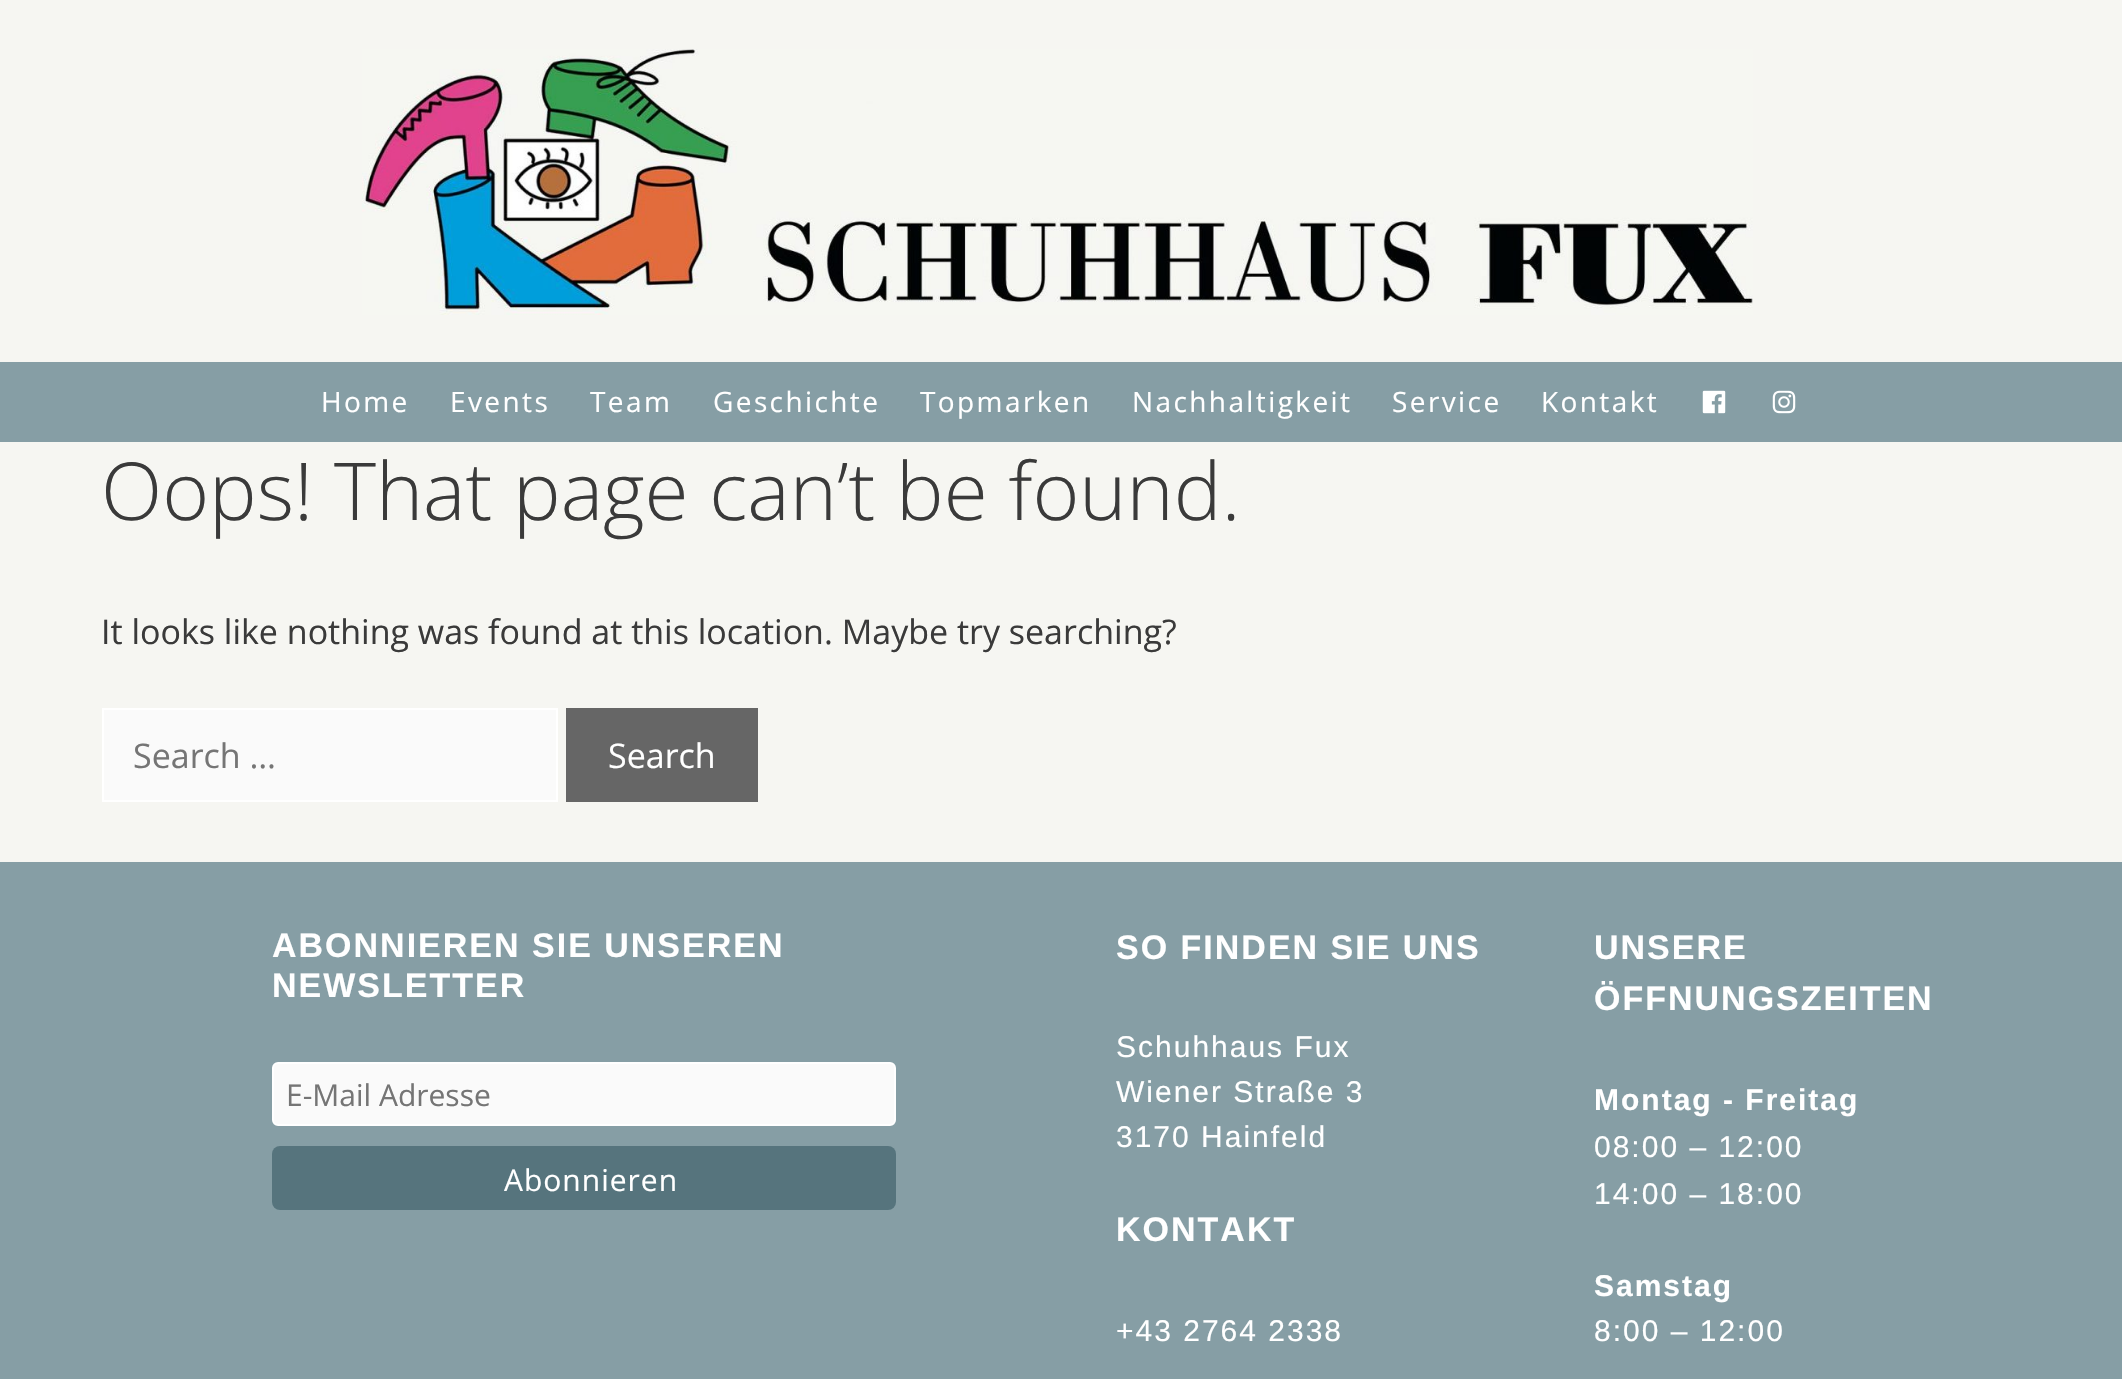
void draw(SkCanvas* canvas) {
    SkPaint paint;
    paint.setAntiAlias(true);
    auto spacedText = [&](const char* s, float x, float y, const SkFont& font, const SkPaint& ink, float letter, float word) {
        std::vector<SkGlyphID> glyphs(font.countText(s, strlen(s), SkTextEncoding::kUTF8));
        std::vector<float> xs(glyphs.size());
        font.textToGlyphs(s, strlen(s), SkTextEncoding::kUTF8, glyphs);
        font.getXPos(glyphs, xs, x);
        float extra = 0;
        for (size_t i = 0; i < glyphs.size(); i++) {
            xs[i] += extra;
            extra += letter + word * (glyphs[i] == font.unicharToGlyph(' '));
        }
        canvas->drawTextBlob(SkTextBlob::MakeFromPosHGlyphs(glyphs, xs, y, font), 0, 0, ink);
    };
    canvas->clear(0xFFF6F6F2);
    canvas->drawImageRect(SkImages::DeferredFromEncodedData(SkData::MakeFromFileName("img1.png")), SkRect::MakeXYWH(362, 49, 1391, 266), SkSamplingOptions());
    paint.setColor(0xFF869EA5);
    canvas->drawRect(SkRect::MakeXYWH(0, 362, 2122, 80), paint);
    SkFont font1(fontMgr->matchFamilyStyle("Open Sans", SkFontStyle::Normal()), 28);
    font1.setSubpixel(true);
    paint.setColor(0xFFFFFFFF);
    spacedText("Home", 321, 412, font1, paint, 2.4f, 0);
    spacedText("Events", 450, 412, font1, paint, 2.4f, 0);
    spacedText("Team", 590, 412, font1, paint, 2.4f, 0);
    spacedText("Geschichte", 713, 412, font1, paint, 2.4f, 0);
    spacedText("Topmarken", 920, 412, font1, paint, 2.4f, 0);
    spacedText("Nachhaltigkeit", 1132, 412, font1, paint, 2.4f, 0);
    spacedText("Service", 1392, 412, font1, paint, 2.4f, 0);
    spacedText("Kontakt", 1541, 412, font1, paint, 2.4f, 0);
    canvas->drawImageRect(SkImages::DeferredFromEncodedData(SkData::MakeFromFileName("img2.png")), SkRect::MakeXYWH(1702, 390, 24, 24), SkSamplingOptions());
    canvas->drawImageRect(SkImages::DeferredFromEncodedData(SkData::MakeFromFileName("img3.png")), SkRect::MakeXYWH(1772, 390, 24, 24), SkSamplingOptions());
    SkFont font2(fontMgr->matchFamilyStyle("Open Sans", SkFontStyle(300, SkFontStyle::kNormal_Width, SkFontStyle::kUpright_Slant)), 80);
    font2.setSubpixel(true);
    paint.setColor(0xFF3A3A3A);
    canvas->drawString("Oops! That page can’t be found.", 101, 520, font2, paint);
    SkFont font3(fontMgr->matchFamilyStyle("Open Sans", SkFontStyle::Normal()), 34);
    font3.setSubpixel(true);
    canvas->drawString("It looks like nothing was found at this location. Maybe try searching?", 101, 644, font3, paint);
    paint.setColor(0xFFFAFAFA);
    canvas->drawRect(SkRect::MakeXYWH(103, 709, 454, 92), paint);
    paint.setStyle(SkPaint::kStroke_Style);
    paint.setStrokeWidth(2);
    paint.setColor(0xFFFFFFFF);
    canvas->drawRect(SkRect::MakeXYWH(103, 709, 454, 92), paint);
    paint.setStyle(SkPaint::kFill_Style);
    paint.setColor(0xFF757575);
    canvas->drawString("Search …", 133, 768, font3, paint);
    paint.setColor(0xFF666666);
    canvas->drawRect(SkRect::MakeXYWH(566, 708, 192, 94), paint);
    paint.setColor(0xFFFFFFFF);
    canvas->drawString("Search", 608, 768, font3, paint);
    paint.setColor(0xFF869EA5);
    canvas->drawRect(SkRect::MakeXYWH(0, 862, 2122, 517), paint);
    SkFont font4(fontMgr->matchFamilyStyle("Liberation Sans", SkFontStyle::Bold()), 34);
    font4.setSubpixel(true);
    paint.setColor(0xFFFFFFFF);
    spacedText("ABONNIEREN SIE UNSEREN", 272, 957, font4, paint, 2, 0);
    spacedText("NEWSLETTER", 272, 997, font4, paint, 2, 0);
    paint.setColor(0xFFFAFAFA);
    canvas->drawRoundRect(SkRect::MakeXYWH(273, 1063, 622, 62), 5, 5, paint);
    paint.setStyle(SkPaint::kStroke_Style);
    paint.setColor(0xFFFFFFFF);
    canvas->drawRoundRect(SkRect::MakeXYWH(273, 1063, 622, 62), 5, 5, paint);
    SkFont font5(fontMgr->matchFamilyStyle("Open Sans", SkFontStyle::Normal()), 30);
    font5.setSubpixel(true);
    paint.setStyle(SkPaint::kFill_Style);
    paint.setColor(0xFF757575);
    canvas->drawString("E-Mail Adresse", 286, 1106, font5, paint);
    paint.setColor(0xFF56747D);
    canvas->drawRoundRect(SkRect::MakeXYWH(272, 1146, 624, 64), 8, 8, paint);
    paint.setColor(0xFFFFFFFF);
    spacedText("Abonnieren", 504, 1191, font5, paint, 1, 0);
    spacedText("SO FINDEN SIE UNS", 1116, 959, font4, paint, 2, 0);
    SkFont font6(fontMgr->matchFamilyStyle("Liberation Sans", SkFontStyle::Normal()), 30);
    font6.setSubpixel(true);
    spacedText("Schuhhaus Fux", 1116, 1057, font6, paint, 2, 0);
    spacedText("Wiener Straße 3", 1116, 1102, font6, paint, 2, 0);
    spacedText("3170 Hainfeld", 1116, 1147, font6, paint, 2, 0);
    spacedText("KONTAKT", 1116, 1241, font4, paint, 2, 0);
    spacedText("+43 2764 2338", 1116, 1341, font6, paint, 2, 0);
    spacedText("UNSERE", 1594, 959, font4, paint, 2, 0);
    spacedText("ÖFFNUNGSZEITEN", 1594, 1010, font4, paint, 2, 0);
    SkFont font7(fontMgr->matchFamilyStyle("Liberation Sans", SkFontStyle::Bold()), 30);
    font7.setSubpixel(true);
    spacedText("Montag - Freitag", 1594, 1110, font7, paint, 2, 0);
    spacedText("08:00 – 12:00", 1594, 1157, font6, paint, 2, 0);
    spacedText("14:00 – 18:00", 1594, 1204, font6, paint, 2, 0);
    spacedText("Samstag", 1594, 1296, font7, paint, 2, 0);
    spacedText("8:00 – 12:00", 1594, 1341, font6, paint, 2, 0);
}
